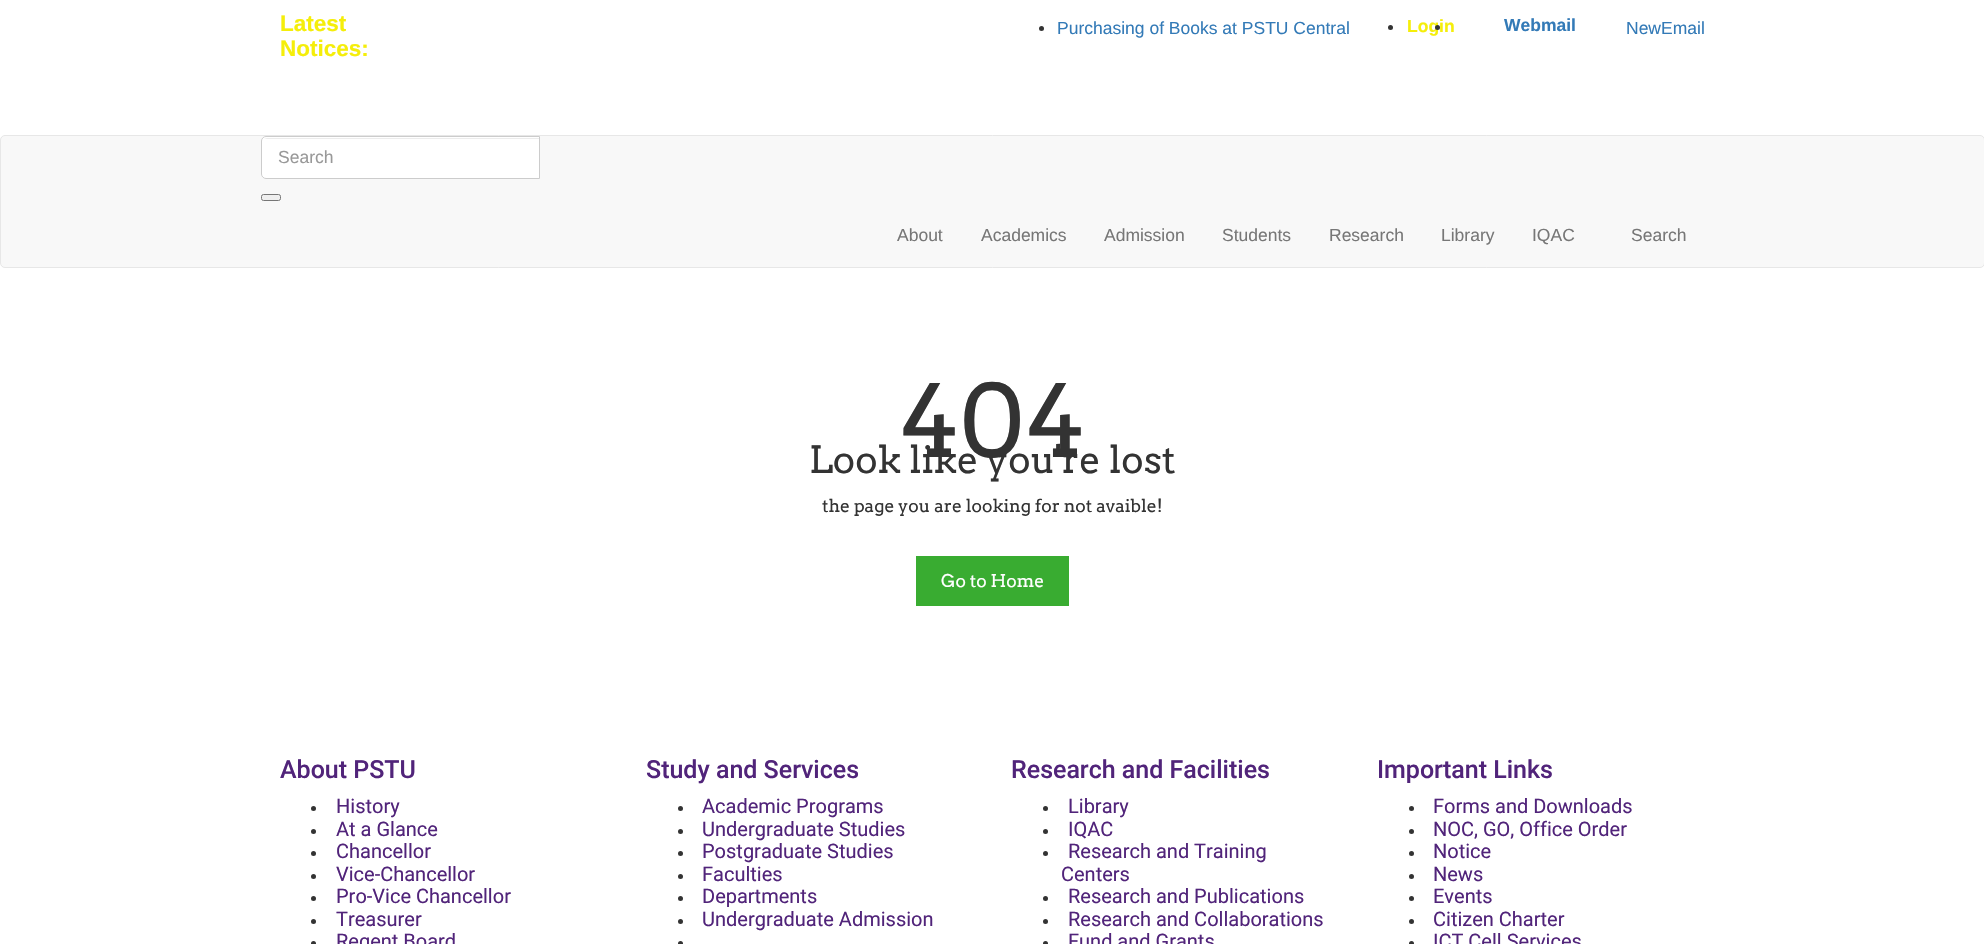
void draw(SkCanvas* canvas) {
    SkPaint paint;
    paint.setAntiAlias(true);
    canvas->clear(0xFFFFFFFF);
    SkFont font1(fontMgr->matchFamilyStyle("Liberation Sans", SkFontStyle::Bold()), 22.5f);
    font1.setSubpixel(true);
    paint.setColor(0xFFF5EE0A);
    canvas->drawString("Latest", 280, 31, font1, paint);
    canvas->drawString("Notices:", 280, 56, font1, paint);
    paint.setColor(0xFF333333);
    canvas->drawCircle(1041.5f, 28.5f, 2.5f, paint);
    SkFont font2(fontMgr->matchFamilyStyle("Liberation Sans", SkFontStyle::Normal()), 17.5f);
    font2.setSubpixel(true);
    paint.setColor(0xFF337AB7);
    canvas->drawString("Purchasing of Books at PSTU Central", 1057, 34, font2, paint);
    paint.setColor(0xFF333333);
    canvas->drawCircle(1390.5f, 27.5f, 2.5f, paint);
    SkFont font3(fontMgr->matchFamilyStyle("Liberation Sans", SkFontStyle::Bold()), 17.5f);
    font3.setSubpixel(true);
    paint.setColor(0xFFF5EE0A);
    canvas->drawString("Login", 1407, 32, font3, paint);
    paint.setColor(0xFF333333);
    canvas->drawCircle(1437.5f, 27.5f, 2.5f, paint);
    paint.setColor(0xFF337AB7);
    canvas->drawString("Webmail", 1504, 31, font3, paint);
    canvas->drawString("NewEmail", 1626, 34, font2, paint);
    paint.setColor(0xFFF8F8F8);
    canvas->drawRoundRect(SkRect::MakeXYWH(0.5f, 135.5f, 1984, 132), 4.5f, 4.5f, paint);
    paint.setStyle(SkPaint::kStroke_Style);
    paint.setStrokeWidth(1);
    paint.setColor(0xFFE7E7E7);
    canvas->drawRoundRect(SkRect::MakeXYWH(0.5f, 135.5f, 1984, 132), 4.5f, 4.5f, paint);
    paint.setStyle(SkPaint::kFill_Style);
    paint.setColor(0xFFFFFFFF);
    canvas->drawPath(SkPathBuilder().moveTo(266, 136).lineTo(540, 136).lineTo(540, 179).lineTo(266, 179).cubicTo(263, 179, 261, 177, 261, 174).lineTo(261, 141).cubicTo(261, 138, 263, 136, 266, 136).close().detach(), paint);
    paint.setColor(0xFFECECEC);
    canvas->drawPath(SkPathBuilder().moveTo(266, 139).lineTo(539, 139).lineTo(539, 138).lineTo(267, 138).cubicTo(266, 138, 265, 139, 264, 139).close().detach(), paint);
    paint.setStyle(SkPaint::kStroke_Style);
    paint.setColor(0xFFCCCCCC);
    canvas->drawPath(SkPathBuilder().moveTo(266, 136.5f).lineTo(539.5f, 136.5f).lineTo(539.5f, 178.5f).lineTo(266, 178.5f).cubicTo(263.5f, 178.5f, 261.5f, 176.5f, 261.5f, 174).lineTo(261.5f, 141).cubicTo(261.5f, 138.5f, 263.5f, 136.5f, 266, 136.5f).close().detach(), paint);
    paint.setStyle(SkPaint::kFill_Style);
    paint.setColor(0xFF999999);
    canvas->drawString("Search", 278, 163, font2, paint);
    paint.setColor(0xFFEFEFEF);
    canvas->drawRoundRect(SkRect::MakeXYWH(261.5f, 194.5f, 19, 6), 2, 2, paint);
    paint.setStyle(SkPaint::kStroke_Style);
    paint.setColor(0xFF767676);
    canvas->drawRoundRect(SkRect::MakeXYWH(261.5f, 194.5f, 19, 6), 2, 2, paint);
    paint.setStyle(SkPaint::kFill_Style);
    paint.setColor(0xFF777777);
    canvas->drawString("About", 897, 241, font2, paint);
    canvas->drawString("Academics", 981, 241, font2, paint);
    canvas->drawString("Admission", 1104, 241, font2, paint);
    canvas->drawString("Students", 1222, 241, font2, paint);
    canvas->drawString("Research", 1329, 241, font2, paint);
    canvas->drawString("Library", 1441, 241, font2, paint);
    canvas->drawString("IQAC", 1532, 241, font2, paint);
    canvas->drawString("Search", 1631, 241, font2, paint);
    SkFont font4(fontMgr->matchFamilyStyle("Arvo", SkFontStyle::Normal()), 100);
    font4.setSubpixel(true);
    paint.setColor(0xFF333333);
    canvas->drawString("404", 899, 457, font4, paint);
    SkFont font5(fontMgr->matchFamilyStyle("Arvo", SkFontStyle::Normal()), 37.5f);
    font5.setSubpixel(true);
    canvas->drawString("Look like you're lost", 809, 473, font5, paint);
    SkFont font6(fontMgr->matchFamilyStyle("Arvo", SkFontStyle::Normal()), 17.5f);
    font6.setSubpixel(true);
    canvas->drawString("the page you are looking for not avaible!", 822, 512, font6, paint);
    paint.setColor(0xFF39AC31);
    canvas->drawRect(SkRect::MakeXYWH(916, 556, 153, 50), paint);
    paint.setColor(0xFFFFFFFF);
    canvas->drawString("Go to Home", 941, 587, font6, paint);
    SkFont font7(fontMgr->matchFamilyStyle("Roboto", SkFontStyle(500, SkFontStyle::kNormal_Width, SkFontStyle::kUpright_Slant)), 25);
    font7.setSubpixel(true);
    paint.setColor(0xFF51247A);
    canvas->drawString("About PSTU", 280, 778, font7, paint);
    paint.setColor(0xFF333333);
    canvas->drawCircle(313.5f, 808.5f, 2.5f, paint);
    SkFont font8(fontMgr->matchFamilyStyle("Roboto", SkFontStyle::Normal()), 20);
    font8.setSubpixel(true);
    paint.setColor(0xFF51247A);
    canvas->drawString("History", 336, 813, font8, paint);
    paint.setColor(0xFF333333);
    canvas->drawCircle(313.5f, 831.5f, 2.5f, paint);
    paint.setColor(0xFF51247A);
    canvas->drawString("At a Glance", 336, 836, font8, paint);
    paint.setColor(0xFF333333);
    canvas->drawCircle(313.5f, 853.5f, 2.5f, paint);
    paint.setColor(0xFF51247A);
    canvas->drawString("Chancellor", 336, 858, font8, paint);
    paint.setColor(0xFF333333);
    canvas->drawCircle(313.5f, 876.5f, 2.5f, paint);
    paint.setColor(0xFF51247A);
    canvas->drawString("Vice-Chancellor", 336, 881, font8, paint);
    paint.setColor(0xFF333333);
    canvas->drawCircle(313.5f, 898.5f, 2.5f, paint);
    paint.setColor(0xFF51247A);
    canvas->drawString("Pro-Vice Chancellor", 336, 903, font8, paint);
    paint.setColor(0xFF333333);
    canvas->drawCircle(313.5f, 921.5f, 2.5f, paint);
    paint.setColor(0xFF51247A);
    canvas->drawString("Treasurer", 336, 926, font8, paint);
    paint.setColor(0xFF333333);
    canvas->drawCircle(313.5f, 943.5f, 2.5f, paint);
    paint.setColor(0xFF51247A);
    canvas->drawString("Regent Board", 336, 948, font8, paint);
    canvas->drawString("Study and Services", 646, 778, font7, paint);
    paint.setColor(0xFF333333);
    canvas->drawCircle(680.5f, 808.5f, 2.5f, paint);
    paint.setColor(0xFF51247A);
    canvas->drawString("Academic Programs", 702, 813, font8, paint);
    paint.setColor(0xFF333333);
    canvas->drawCircle(680.5f, 831.5f, 2.5f, paint);
    paint.setColor(0xFF51247A);
    canvas->drawString("Undergraduate Studies", 702, 836, font8, paint);
    paint.setColor(0xFF333333);
    canvas->drawCircle(680.5f, 853.5f, 2.5f, paint);
    paint.setColor(0xFF51247A);
    canvas->drawString("Postgraduate Studies", 702, 858, font8, paint);
    paint.setColor(0xFF333333);
    canvas->drawCircle(680.5f, 876.5f, 2.5f, paint);
    paint.setColor(0xFF51247A);
    canvas->drawString("Faculties", 702, 881, font8, paint);
    paint.setColor(0xFF333333);
    canvas->drawCircle(680.5f, 898.5f, 2.5f, paint);
    paint.setColor(0xFF51247A);
    canvas->drawString("Departments", 702, 903, font8, paint);
    paint.setColor(0xFF333333);
    canvas->drawCircle(680.5f, 921.5f, 2.5f, paint);
    paint.setColor(0xFF51247A);
    canvas->drawString("Undergraduate Admission", 702, 926, font8, paint);
    paint.setColor(0xFF333333);
    canvas->drawCircle(680.5f, 943.5f, 2.5f, paint);
    paint.setColor(0xFF51247A);
    canvas->drawString("Research and Facilities", 1011, 778, font7, paint);
    paint.setColor(0xFF333333);
    canvas->drawCircle(1045.5f, 808.5f, 2.5f, paint);
    paint.setColor(0xFF51247A);
    canvas->drawString("Library", 1068, 813, font8, paint);
    paint.setColor(0xFF333333);
    canvas->drawCircle(1045.5f, 831.5f, 2.5f, paint);
    paint.setColor(0xFF51247A);
    canvas->drawString("IQAC", 1068, 836, font8, paint);
    paint.setColor(0xFF333333);
    canvas->drawCircle(1045.5f, 853.5f, 2.5f, paint);
    paint.setColor(0xFF51247A);
    canvas->drawString("Research and Training", 1068, 858, font8, paint);
    canvas->drawString("Centers", 1061, 881, font8, paint);
    paint.setColor(0xFF333333);
    canvas->drawCircle(1045.5f, 898.5f, 2.5f, paint);
    paint.setColor(0xFF51247A);
    canvas->drawString("Research and Publications", 1068, 903, font8, paint);
    paint.setColor(0xFF333333);
    canvas->drawCircle(1045.5f, 921.5f, 2.5f, paint);
    paint.setColor(0xFF51247A);
    canvas->drawString("Research and Collaborations", 1068, 926, font8, paint);
    paint.setColor(0xFF333333);
    canvas->drawCircle(1045.5f, 943.5f, 2.5f, paint);
    paint.setColor(0xFF51247A);
    canvas->drawString("Fund and Grants", 1068, 948, font8, paint);
    canvas->drawString("Important Links", 1377, 778, font7, paint);
    paint.setColor(0xFF333333);
    canvas->drawCircle(1411.5f, 808.5f, 2.5f, paint);
    paint.setColor(0xFF51247A);
    canvas->drawString("Forms and Downloads", 1433, 813, font8, paint);
    paint.setColor(0xFF333333);
    canvas->drawCircle(1411.5f, 831.5f, 2.5f, paint);
    paint.setColor(0xFF51247A);
    canvas->drawString("NOC, GO, Office Order", 1433, 836, font8, paint);
    paint.setColor(0xFF333333);
    canvas->drawCircle(1411.5f, 853.5f, 2.5f, paint);
    paint.setColor(0xFF51247A);
    canvas->drawString("Notice", 1433, 858, font8, paint);
    paint.setColor(0xFF333333);
    canvas->drawCircle(1411.5f, 876.5f, 2.5f, paint);
    paint.setColor(0xFF51247A);
    canvas->drawString("News", 1433, 881, font8, paint);
    paint.setColor(0xFF333333);
    canvas->drawCircle(1411.5f, 898.5f, 2.5f, paint);
    paint.setColor(0xFF51247A);
    canvas->drawString("Events", 1433, 903, font8, paint);
    paint.setColor(0xFF333333);
    canvas->drawCircle(1411.5f, 921.5f, 2.5f, paint);
    paint.setColor(0xFF51247A);
    canvas->drawString("Citizen Charter", 1433, 926, font8, paint);
    paint.setColor(0xFF333333);
    canvas->drawCircle(1411.5f, 943.5f, 2.5f, paint);
    paint.setColor(0xFF51247A);
    canvas->drawString("ICT Cell Services", 1433, 948, font8, paint);
}
